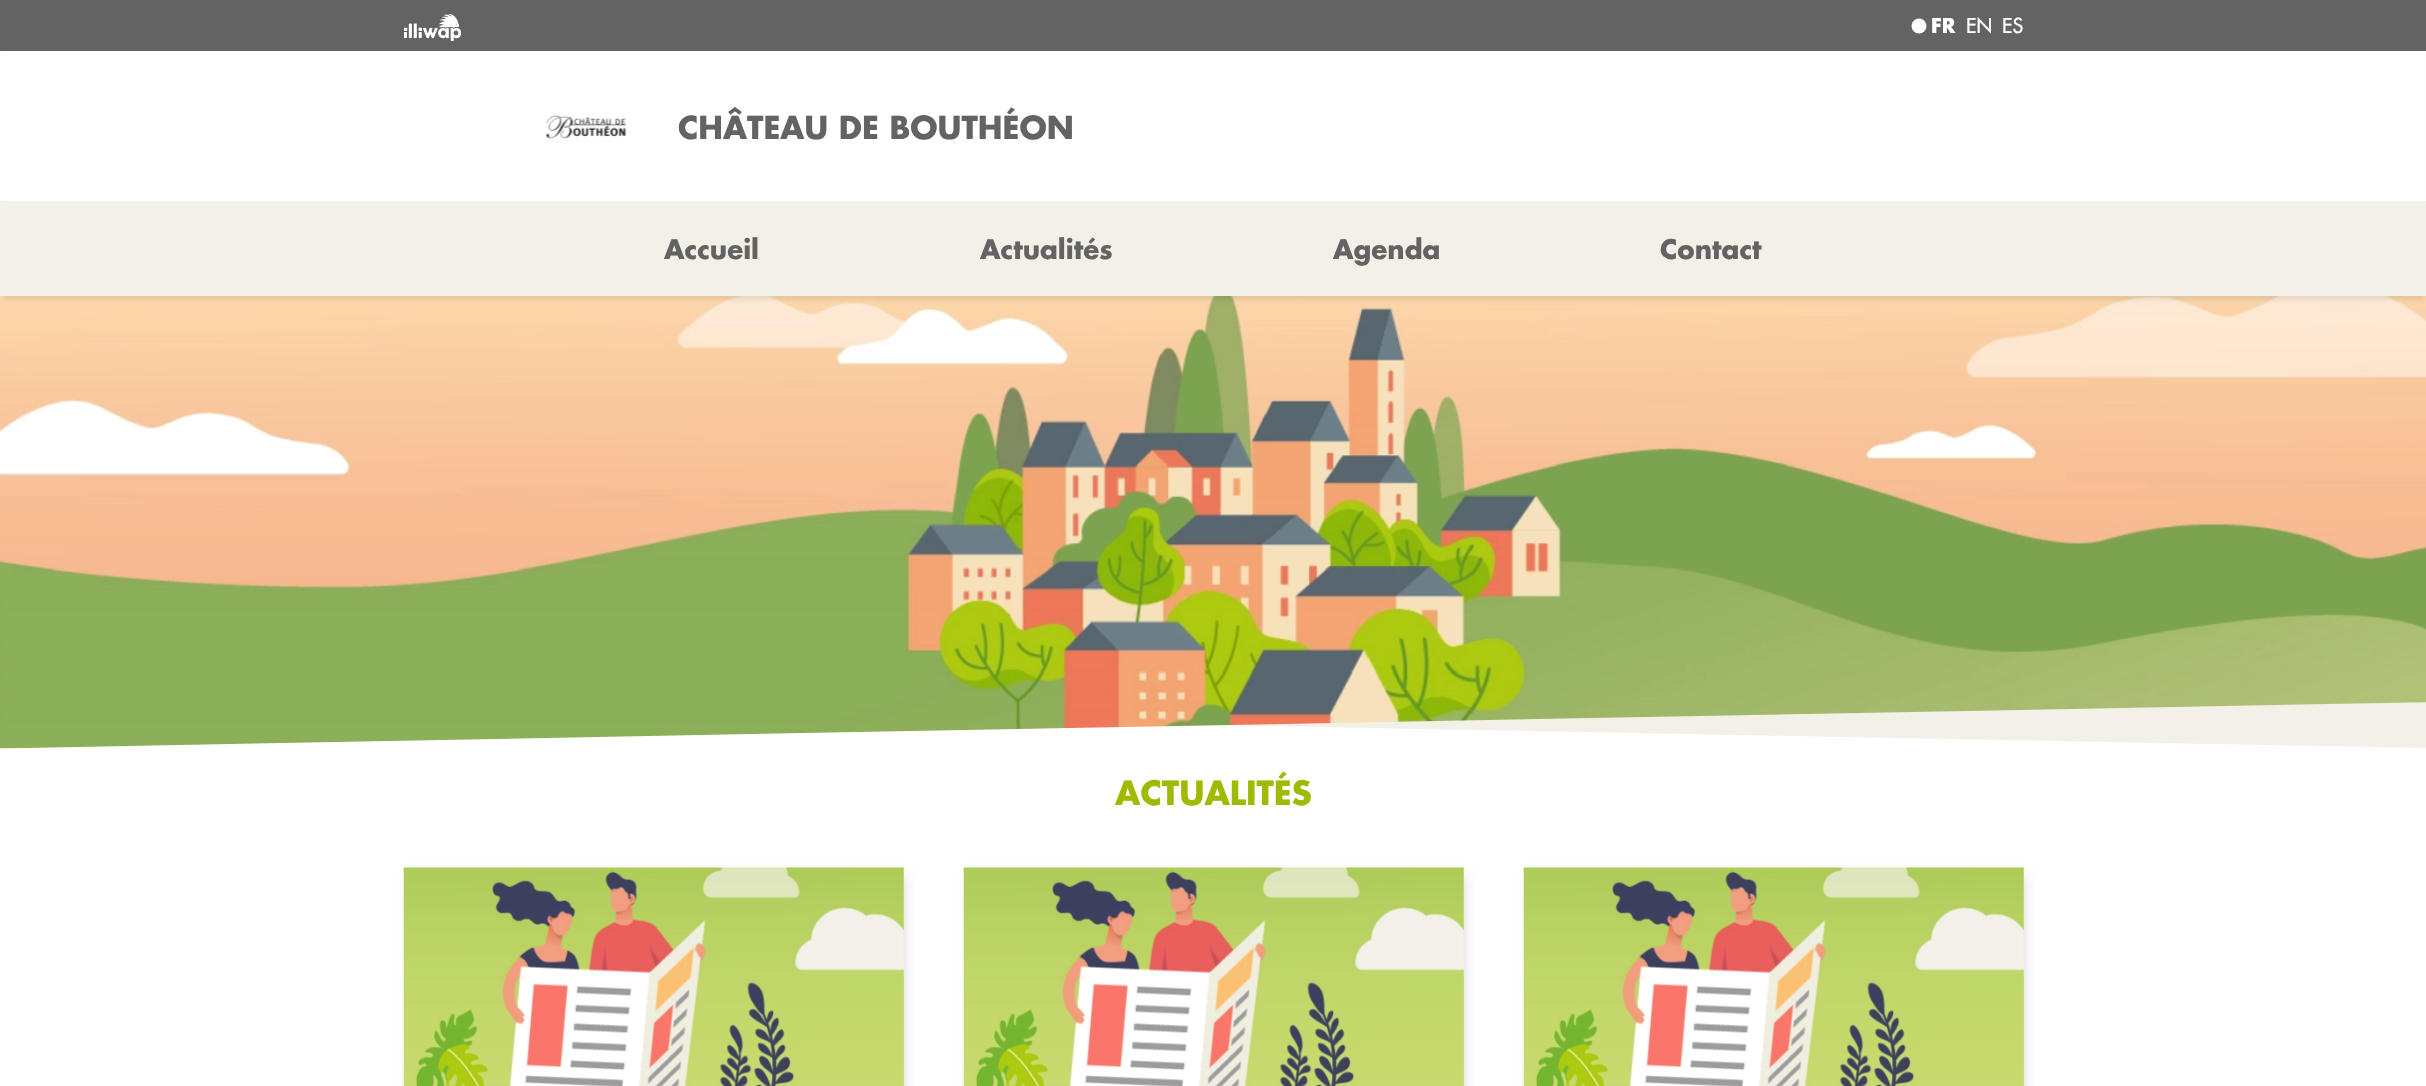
void draw(SkCanvas* canvas) {
    SkPaint paint;
    paint.setAntiAlias(true);
    canvas->clear(0xFFFFFFFF);
    paint.setColor(0xFFF3F0E8);
    canvas->drawPath(SkPathBuilder().moveTo(0, 286).lineTo(0, 702).lineTo(2426, 748).lineTo(2426, 286).close().detach(), paint);
    canvas->drawImageRect(SkImages::DeferredFromEncodedData(SkData::MakeFromFileName("img3.png")), SkRect::MakeXYWH(0, 296, 2426, 453), SkSamplingOptions());
    paint.setColor(0x14000000);
    paint.setMaskFilter(SkMaskFilter::MakeBlur(kNormal_SkBlurStyle, 2));
    canvas->drawRect(SkRect::MakeXYWH(4, 11, 2419, 289), paint);
    paint.setMaskFilter(nullptr);
    paint.setColor(0xFFFFFFFF);
    canvas->drawRect(SkRect::MakeXYWH(2, 51, 2423, 150), paint);
    paint.setColor(0xFF646363);
    canvas->drawRect(SkRect::MakeXYWH(0, 0, 2426, 51), paint);
    canvas->drawImageRect(SkImages::DeferredFromEncodedData(SkData::MakeFromFileName("img1.png")), SkRect::MakeXYWH(404, 14, 57, 27), SkSamplingOptions());
    paint.setColor(0xFFFFFFFF);
    canvas->drawCircle(1919, 26, 7.5f, paint);
    SkFont font1(fontMgr->matchFamilyStyle("Futura", SkFontStyle::Bold()), 20);
    font1.setSubpixel(true);
    canvas->drawString("FR", 1931, 33, font1, paint);
    SkFont font2(fontMgr->matchFamilyStyle("Futura", SkFontStyle::Normal()), 20);
    font2.setSubpixel(true);
    canvas->drawString("EN", 1966, 33, font2, paint);
    canvas->drawString("ES", 2002, 33, font2, paint);
    canvas->drawImageRect(SkImages::DeferredFromEncodedData(SkData::MakeFromFileName("img2.png")), SkRect::MakeXYWH(545, 115, 82, 24), SkSamplingOptions());
    SkFont font3(fontMgr->matchFamilyStyle("Futura", SkFontStyle::Bold()), 30.75f);
    font3.setSubpixel(true);
    paint.setColor(0xFF646363);
    canvas->drawString("CHÂTEAU DE BOUTHÉON", 678, 139, font3, paint);
    paint.setColor(0xFFF3F0E8);
    canvas->drawRect(SkRect::MakeXYWH(0, 201, 2426, 95), paint);
    SkFont font4(fontMgr->matchFamilyStyle("Futura", SkFontStyle::Bold()), 26.25f);
    font4.setSubpixel(true);
    paint.setColor(0xFF646363);
    canvas->drawString("Accueil", 664, 259, font4, paint);
    canvas->drawString("Actualités", 980, 259, font4, paint);
    canvas->drawString("Agenda", 1333, 259, font4, paint);
    canvas->drawString("Contact", 1660, 259, font4, paint);
    SkFont font5(fontMgr->matchFamilyStyle("Futura", SkFontStyle::Bold()), 32.5f);
    font5.setSubpixel(true);
    paint.setColor(0xFF9FBA00);
    canvas->drawString("ACTUALITÉS", 1115, 805, font5, paint);
    paint.setColor(0x26000000);
    paint.setMaskFilter(SkMaskFilter::MakeBlur(kNormal_SkBlurStyle, 6));
    canvas->drawRect(SkRect::MakeXYWH(411, 875, 493, 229), paint);
    paint.setMaskFilter(nullptr);
    canvas->drawImageRect(SkImages::DeferredFromEncodedData(SkData::MakeFromFileName("img4.png")), SkRect::MakeXYWH(403, 867, 501, 219), SkSamplingOptions());
    paint.setMaskFilter(SkMaskFilter::MakeBlur(kNormal_SkBlurStyle, 6));
    canvas->drawRect(SkRect::MakeXYWH(971, 875, 493, 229), paint);
    paint.setMaskFilter(nullptr);
    canvas->drawImageRect(SkImages::DeferredFromEncodedData(SkData::MakeFromFileName("img5.png")), SkRect::MakeXYWH(963, 867, 501, 219), SkSamplingOptions());
    paint.setMaskFilter(SkMaskFilter::MakeBlur(kNormal_SkBlurStyle, 6));
    canvas->drawRect(SkRect::MakeXYWH(1531, 875, 493, 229), paint);
    paint.setMaskFilter(nullptr);
    canvas->drawImageRect(SkImages::DeferredFromEncodedData(SkData::MakeFromFileName("img6.png")), SkRect::MakeXYWH(1523, 867, 501, 219), SkSamplingOptions());
}
